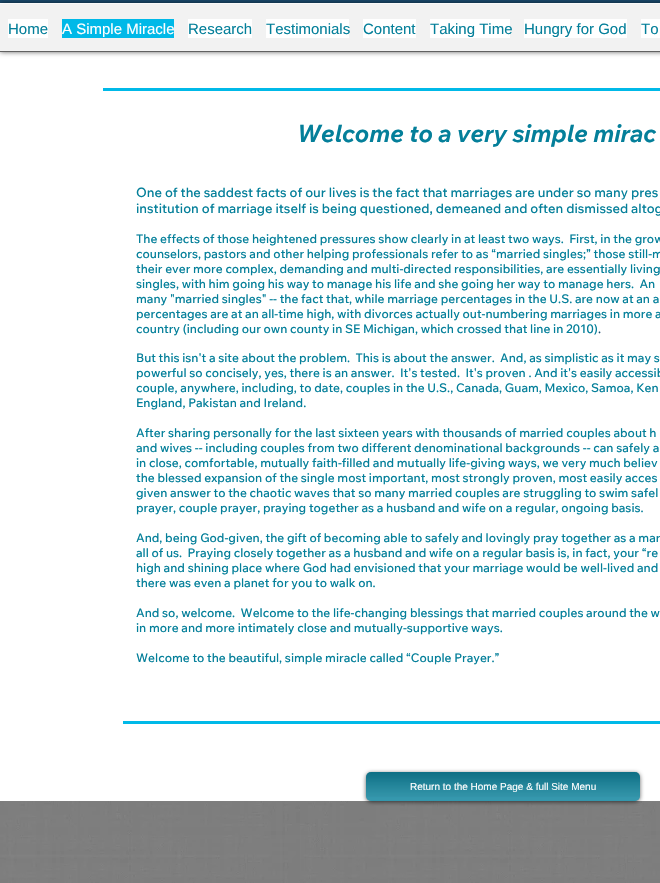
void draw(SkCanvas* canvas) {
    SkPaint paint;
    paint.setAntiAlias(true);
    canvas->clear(0xFFFFFFFF);
    paint.setColor(0xFF1B4B6E);
    canvas->drawRect(SkRect::MakeXYWH(0, 0, 660, 3), paint);
    paint.setColor(0x99000000);
    paint.setMaskFilter(SkMaskFilter::MakeBlur(kNormal_SkBlurStyle, 2.5f));
    canvas->drawRect(SkRect::MakeXYWH(0, 3, 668, 49), paint);
    paint.setMaskFilter(nullptr);
    paint.setColor(0xFFF2F2F2);
    canvas->drawRect(SkRect::MakeXYWH(0, 4, 660, 47), paint);
    paint.setColor(0xFF616161);
    canvas->drawRect(SkRect::MakeXYWH(0, 51, 660, 1), paint);
    paint.setColor(0xFFFAFAFA);
    canvas->drawRect(SkRect::MakeXYWH(0, 3, 660, 1), paint);
    paint.setColor(0xFFFFFFFF);
    canvas->drawRect(SkRect::MakeXYWH(8, 19, 40, 19), paint);
    SkFont font1(fontMgr->matchFamilyStyle("Liberation Sans", SkFontStyle::Normal()), 15);
    font1.setSubpixel(true);
    paint.setColor(0xFF047F9A);
    canvas->drawString("Home", 8, 34, font1, paint);
    paint.setColor(0xFF00B9E8);
    canvas->drawRect(SkRect::MakeXYWH(62, 19, 112, 19), paint);
    paint.setColor(0xFFFFFFFF);
    canvas->drawString("A Simple Miracle", 62, 34, font1, paint);
    canvas->drawRect(SkRect::MakeXYWH(188, 19, 64, 19), paint);
    paint.setColor(0xFF047F9A);
    canvas->drawString("Research", 188, 34, font1, paint);
    paint.setColor(0xFFFFFFFF);
    canvas->drawRect(SkRect::MakeXYWH(266, 19, 83, 19), paint);
    paint.setColor(0xFF047F9A);
    canvas->drawString("Testimonials", 266, 34, font1, paint);
    paint.setColor(0xFFFFFFFF);
    canvas->drawRect(SkRect::MakeXYWH(363, 19, 53, 19), paint);
    paint.setColor(0xFF047F9A);
    canvas->drawString("Content", 363, 34, font1, paint);
    paint.setColor(0xFFFFFFFF);
    canvas->drawRect(SkRect::MakeXYWH(430, 19, 80, 19), paint);
    paint.setColor(0xFF047F9A);
    canvas->drawString("Taking Time", 430, 34, font1, paint);
    paint.setColor(0xFFFFFFFF);
    canvas->drawRect(SkRect::MakeXYWH(524, 19, 103, 19), paint);
    paint.setColor(0xFF047F9A);
    canvas->drawString("Hungry for God", 524, 34, font1, paint);
    paint.setColor(0xFFFFFFFF);
    canvas->drawRect(SkRect::MakeXYWH(641, 19, 19, 19), paint);
    paint.setColor(0xFF047F9A);
    canvas->drawString("To", 641, 34, font1, paint);
    paint.setColor(0xFF00B9E8);
    canvas->drawRect(SkRect::MakeXYWH(103, 88, 557, 3), paint);
    SkFont font2(fontMgr->matchFamilyStyle("Wix Madefor Text", SkFontStyle::BoldItalic()), 24);
    font2.setSubpixel(true);
    paint.setColor(0xFF047F9A);
    canvas->drawString("Welcome to a very simple mirac", 297, 142, font2, paint);
    SkFont font3(fontMgr->matchFamilyStyle("Wix Madefor Text", SkFontStyle(500, SkFontStyle::kNormal_Width, SkFontStyle::kUpright_Slant)), 13);
    font3.setSubpixel(true);
    canvas->drawString("One of the saddest facts of our lives is the fact that marriages are under so many pres", 136, 197, font3, paint);
    canvas->drawString("institution of marriage itself is being questioned, demeaned and often dismissed altog", 136, 213, font3, paint);
    SkFont font4(fontMgr->matchFamilyStyle("Wix Madefor Text", SkFontStyle(500, SkFontStyle::kNormal_Width, SkFontStyle::kUpright_Slant)), 12);
    font4.setSubpixel(true);
    canvas->drawString("The effects of those heightened pressures show clearly in at least two ways.  First, in the grow", 136, 243, font4, paint);
    canvas->drawString("counselors, pastors and other helping professionals refer to as “married singles;” those still-m", 136, 258, font4, paint);
    canvas->drawString("their ever more complex, demanding and multi-directed responsibilities, are essentially living", 136, 273, font4, paint);
    canvas->drawString("singles, with him going his way to manage his life and she going her way to manage hers.  An", 136, 288, font4, paint);
    canvas->drawString("many \"married singles\" -- the fact that, while marriage percentages in the U.S. are now at an a", 136, 303, font4, paint);
    canvas->drawString("percentages are at an all-time high, with divorces actually out-numbering marriages in more a", 136, 318, font4, paint);
    canvas->drawString("country (including our own county in SE Michigan, which crossed that line in 2010)", 136, 333, font4, paint);
    paint.setColor(0xFF1B4B6E);
    canvas->drawString(".", 598, 333, font4, paint);
    paint.setColor(0xFF047F9A);
    canvas->drawString("But this isn't a site about the problem.  This is about the answer.  And, as simplistic as it may s", 136, 362, font4, paint);
    canvas->drawString("powerful so concisely, yes, there is an answer.  It's tested.  It's proven . And it's easily accessib", 136, 377, font4, paint);
    canvas->drawString("couple, anywhere, including, to date, couples in the U.S., Canada, Guam, Mexico, Samoa, Ken", 136, 392, font4, paint);
    canvas->drawString("England, Pakistan and Ireland.", 136, 407, font4, paint);
    canvas->drawString("After sharing personally for the last sixteen years with thousands of married couples about h", 136, 437, font4, paint);
    canvas->drawString("and wives -- including couples from two different denominational backgrounds -- can safely a", 136, 452, font4, paint);
    canvas->drawString("in close, comfortable, mutually faith-filled and mutually life-giving ways, we very much believ", 136, 467, font4, paint);
    canvas->drawString("the blessed expansion of the single most important, most strongly proven, most easily acces", 136, 482, font4, paint);
    canvas->drawString("given answer to the chaotic waves that so many married couples are struggling to swim safel", 136, 497, font4, paint);
    canvas->drawString("prayer, couple prayer, praying together as a husband and wife on a regular, ongoing basis.", 136, 512, font4, paint);
    canvas->drawString("And, being God-given, the gift of becoming able to safely and lovingly pray together as a mar", 136, 542, font4, paint);
    canvas->drawString("all of us.  Praying closely together as a husband and wife on a regular basis is, in fact, your “re", 136, 557, font4, paint);
    canvas->drawString("high and shining place where God had envisioned that your marriage would be well-lived and", 136, 572, font4, paint);
    canvas->drawString("there was even a planet for you to walk on.", 136, 587, font4, paint);
    canvas->drawString("And so, welcome.  Welcome to the life-changing blessings that married couples around the w", 136, 617, font4, paint);
    canvas->drawString("in more and more intimately close and mutually-supportive ways.", 136, 632, font4, paint);
    canvas->drawString("Welcome to the beautiful, simple miracle called “Couple Prayer.”", 136, 662, font4, paint);
    paint.setColor(0xFF00B9E8);
    canvas->drawRect(SkRect::MakeXYWH(123, 721, 537, 3), paint);
    canvas->drawImageRect(SkImages::DeferredFromEncodedData(SkData::MakeFromFileName("img3.png")), SkRect::MakeXYWH(0, 801, 660, 82), SkSamplingOptions());
    paint.setColor(0x99000000);
    paint.setMaskFilter(SkMaskFilter::MakeBlur(kNormal_SkBlurStyle, 2));
    canvas->drawRoundRect(SkRect::MakeXYWH(366, 773, 274, 29), 5, 5, paint);
    paint.setMaskFilter(nullptr);
    paint.setColor(0xFF047F9A);
    canvas->drawRoundRect(SkRect::MakeXYWH(366, 772, 274, 29), 5, 5, paint);
    canvas->drawImageRect(SkImages::DeferredFromEncodedData(SkData::MakeFromFileName("img1.png")), SkRect::MakeXYWH(366, 772, 274, 25), SkSamplingOptions());
    canvas->drawImageRect(SkImages::DeferredFromEncodedData(SkData::MakeFromFileName("img2.png")), SkRect::MakeXYWH(366, 772, 274, 29), SkSamplingOptions());
    SkFont font5(fontMgr->matchFamilyStyle("Liberation Sans", SkFontStyle::Normal()), 10);
    font5.setSubpixel(true);
    paint.setColor(0xFFFFFFFF);
    canvas->drawString("Return to the Home Page & full Site Menu", 410, 790, font5, paint);
}
